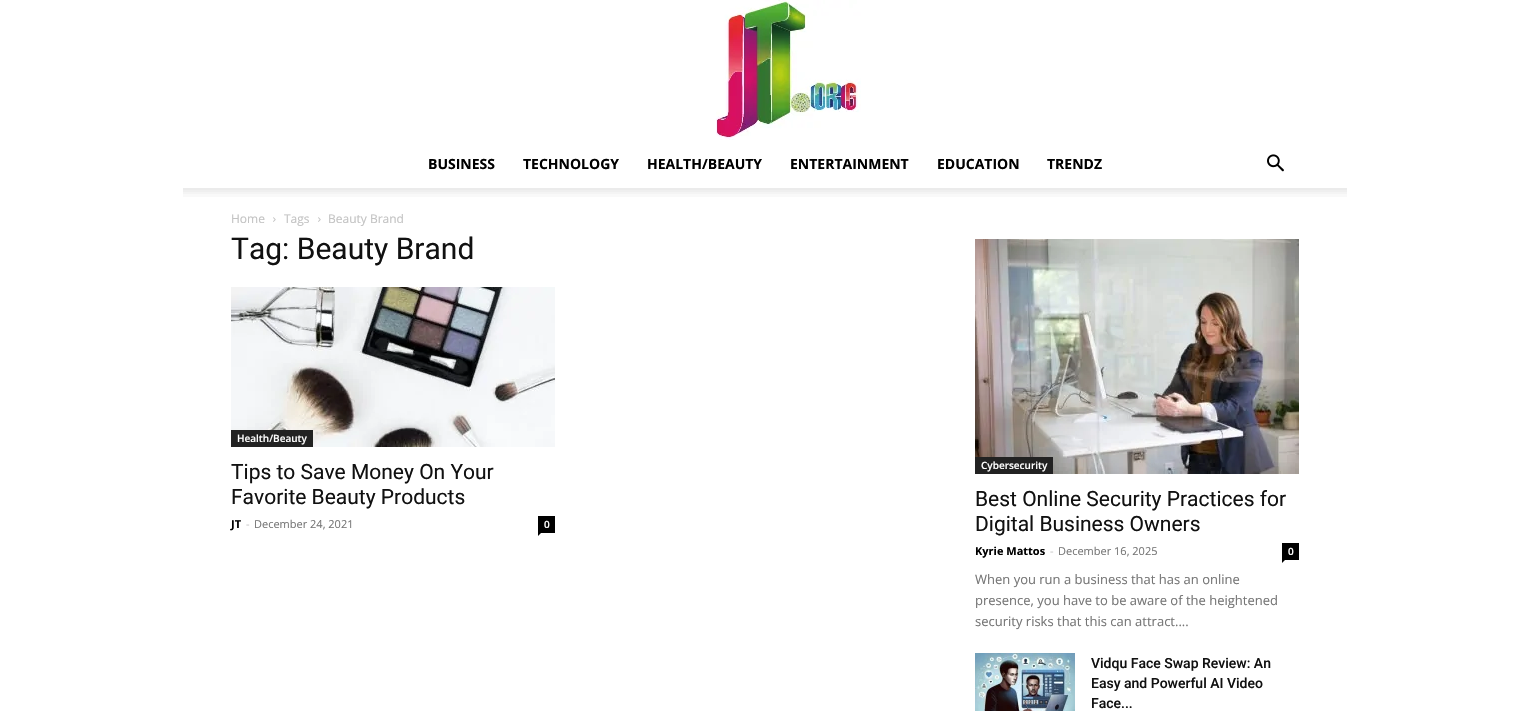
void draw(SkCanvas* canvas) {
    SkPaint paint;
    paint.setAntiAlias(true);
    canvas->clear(0xFFFFFFFF);
    canvas->drawImageRect(SkImages::DeferredFromEncodedData(SkData::MakeFromFileName("img1.png")), SkRect::MakeXYWH(716, 0, 145, 140), SkSamplingOptions());
    SkFont font1(fontMgr->matchFamilyStyle("Open Sans", SkFontStyle::Bold()), 14);
    font1.setSubpixel(true);
    paint.setColor(0xFF000000);
    canvas->drawString("BUSINESS", 428, 169, font1, paint);
    canvas->drawString("TECHNOLOGY", 523, 169, font1, paint);
    canvas->drawString("HEALTH/BEAUTY", 647, 169, font1, paint);
    canvas->drawString("ENTERTAINMENT", 790, 169, font1, paint);
    canvas->drawString("EDUCATION", 937, 169, font1, paint);
    canvas->drawString("TRENDZ", 1047, 169, font1, paint);
    canvas->drawImageRect(SkImages::DeferredFromEncodedData(SkData::MakeFromFileName("img2.png")), SkRect::MakeXYWH(1267, 154, 17, 18), SkSamplingOptions());
    canvas->drawImageRect(SkImages::DeferredFromEncodedData(SkData::MakeFromFileName("img3.png")), SkRect::MakeXYWH(183, 188, 1164, 9), SkSamplingOptions());
    SkFont font2(fontMgr->matchFamilyStyle("Open Sans", SkFontStyle::Normal()), 12);
    font2.setSubpixel(true);
    paint.setColor(0xFFC3C3C3);
    canvas->drawString("Home", 231, 223, font2, paint);
    canvas->drawImageRect(SkImages::DeferredFromEncodedData(SkData::MakeFromFileName("img4.png")), SkRect::MakeXYWH(273, 217, 3, 5), SkSamplingOptions());
    canvas->drawString("Tags", 284, 223, font2, paint);
    canvas->drawImageRect(SkImages::DeferredFromEncodedData(SkData::MakeFromFileName("img4.png")), SkRect::MakeXYWH(318, 217, 3, 5), SkSamplingOptions());
    canvas->drawString("Beauty Brand", 328, 223, font2, paint);
    SkFont font3(fontMgr->matchFamilyStyle("Roboto", SkFontStyle::Normal()), 30);
    font3.setSubpixel(true);
    paint.setColor(0xFF111111);
    canvas->drawString("Tag: Beauty Brand", 231, 259, font3, paint);
    canvas->drawImageRect(SkImages::DeferredFromEncodedData(SkData::MakeFromFileName("img5.png")), SkRect::MakeXYWH(231, 287, 324, 160), SkSamplingOptions());
    paint.setColor(0xFF222222);
    canvas->drawRect(SkRect::MakeXYWH(231, 430, 82, 17), paint);
    SkFont font4(fontMgr->matchFamilyStyle("Open Sans", SkFontStyle(600, SkFontStyle::kNormal_Width, SkFontStyle::kUpright_Slant)), 10);
    font4.setSubpixel(true);
    paint.setColor(0xFFFFFFFF);
    canvas->drawString("Health/Beauty", 237, 442, font4, paint);
    SkFont font5(fontMgr->matchFamilyStyle("Roboto", SkFontStyle::Normal()), 21);
    font5.setSubpixel(true);
    paint.setColor(0xFF111111);
    canvas->drawString("Tips to Save Money On Your", 231, 479, font5, paint);
    canvas->drawString("Favorite Beauty Products", 231, 504, font5, paint);
    SkFont font6(fontMgr->matchFamilyStyle("Open Sans", SkFontStyle::Bold()), 11);
    font6.setSubpixel(true);
    paint.setColor(0xFF000000);
    canvas->drawString("JT", 231, 528, font6, paint);
    SkFont font7(fontMgr->matchFamilyStyle("Open Sans", SkFontStyle::Normal()), 11);
    font7.setSubpixel(true);
    paint.setColor(0xFFCCCCCC);
    canvas->drawString("-", 246, 528, font7, paint);
    paint.setColor(0xFF767676);
    canvas->drawString("December 24, 2021", 254, 528, font7, paint);
    paint.setColor(0xFF000000);
    canvas->drawRect(SkRect::MakeXYWH(538, 516, 17, 17), paint);
    paint.setColor(0xFFFFFFFF);
    canvas->drawString("0", 544, 528, font4, paint);
    paint.setColor(0xFF000000);
    canvas->drawPath(SkPathBuilder().moveTo(538, 533).lineTo(541, 533).lineTo(538, 536).close().detach(), paint);
    canvas->drawImageRect(SkImages::DeferredFromEncodedData(SkData::MakeFromFileName("img6.png")), SkRect::MakeXYWH(975, 239, 324, 235), SkSamplingOptions());
    paint.setColor(0xFF222222);
    canvas->drawRect(SkRect::MakeXYWH(975, 457, 78, 17), paint);
    paint.setColor(0xFFFFFFFF);
    canvas->drawString("Cybersecurity", 981, 469, font4, paint);
    paint.setColor(0xFF111111);
    canvas->drawString("Best Online Security Practices for", 975, 506, font5, paint);
    canvas->drawString("Digital Business Owners", 975, 531, font5, paint);
    paint.setColor(0xFF000000);
    canvas->drawString("Kyrie Mattos", 975, 555, font6, paint);
    paint.setColor(0xFFCCCCCC);
    canvas->drawString("-", 1050, 555, font7, paint);
    paint.setColor(0xFF767676);
    canvas->drawString("December 16, 2025", 1058, 555, font7, paint);
    paint.setColor(0xFF000000);
    canvas->drawRect(SkRect::MakeXYWH(1282, 543, 17, 17), paint);
    paint.setColor(0xFFFFFFFF);
    canvas->drawString("0", 1288, 555, font4, paint);
    paint.setColor(0xFF000000);
    canvas->drawPath(SkPathBuilder().moveTo(1282, 560).lineTo(1285, 560).lineTo(1282, 563).close().detach(), paint);
    SkFont font8(fontMgr->matchFamilyStyle("Open Sans", SkFontStyle::Normal()), 13);
    font8.setSubpixel(true);
    paint.setColor(0xFF767676);
    canvas->drawString("When you run a business that has an online", 975, 584, font8, paint);
    canvas->drawString("presence, you have to be aware of the heightened", 975, 605, font8, paint);
    canvas->drawString("security risks that this can attract....", 975, 626, font8, paint);
    canvas->drawImageRect(SkImages::DeferredFromEncodedData(SkData::MakeFromFileName("img7.png")), SkRect::MakeXYWH(975, 653, 100, 58), SkSamplingOptions());
    SkFont font9(fontMgr->matchFamilyStyle("Roboto", SkFontStyle(500, SkFontStyle::kNormal_Width, SkFontStyle::kUpright_Slant)), 14);
    font9.setSubpixel(true);
    paint.setColor(0xFF111111);
    canvas->drawString("Vidqu Face Swap Review: An", 1091, 668, font9, paint);
    canvas->drawString("Easy and Powerful AI Video", 1091, 688, font9, paint);
    canvas->drawString("Face...", 1091, 708, font9, paint);
}
